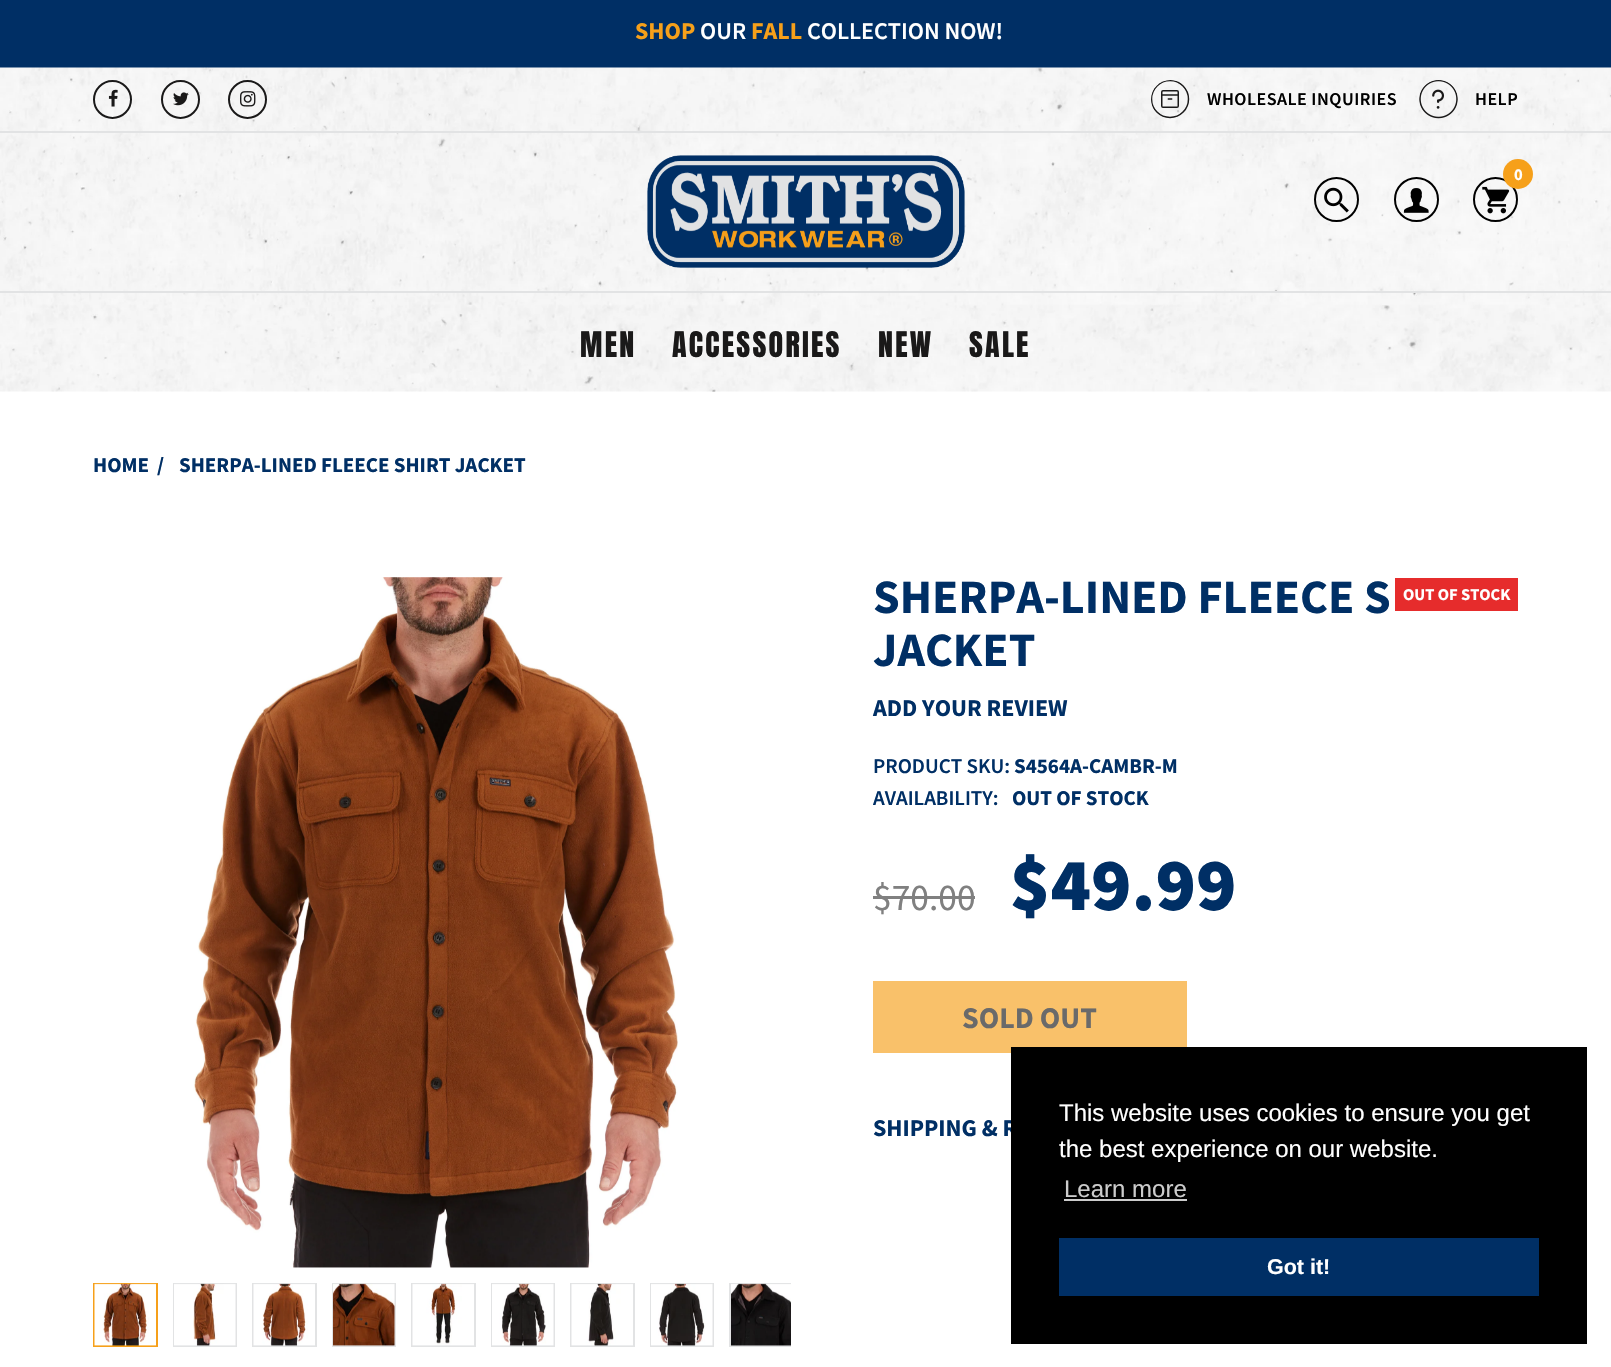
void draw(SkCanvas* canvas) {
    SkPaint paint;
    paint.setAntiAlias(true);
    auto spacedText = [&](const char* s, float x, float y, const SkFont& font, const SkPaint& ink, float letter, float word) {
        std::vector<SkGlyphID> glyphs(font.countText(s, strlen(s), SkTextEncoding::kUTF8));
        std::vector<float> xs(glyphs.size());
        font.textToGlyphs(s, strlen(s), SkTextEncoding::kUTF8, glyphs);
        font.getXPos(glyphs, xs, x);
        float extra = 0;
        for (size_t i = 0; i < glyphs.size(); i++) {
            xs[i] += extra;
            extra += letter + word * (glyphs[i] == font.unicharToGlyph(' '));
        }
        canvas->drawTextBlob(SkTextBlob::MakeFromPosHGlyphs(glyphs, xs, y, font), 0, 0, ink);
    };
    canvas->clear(0xFFFFFFFF);
    paint.setColor(0xFF002F65);
    canvas->drawRect(SkRect::MakeXYWH(0, 0, 1611, 68), paint);
    SkFont font1(fontMgr->matchFamilyStyle("Source Sans Pro", SkFontStyle::Bold()), 24);
    font1.setSubpixel(true);
    paint.setColor(0xFFF6A01A);
    canvas->drawString("SHOP", 635, 39, font1, paint);
    SkFont font2(fontMgr->matchFamilyStyle("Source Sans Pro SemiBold", SkFontStyle(600, SkFontStyle::kNormal_Width, SkFontStyle::kUpright_Slant)), 24);
    font2.setSubpixel(true);
    paint.setColor(0xFFFFFFFF);
    canvas->drawString("OUR", 700, 39, font2, paint);
    paint.setColor(0xFFF6A01A);
    canvas->drawString("FALL", 751, 39, font1, paint);
    paint.setColor(0xFFFFFFFF);
    canvas->drawString("COLLECTION NOW!", 807, 39, font2, paint);
    canvas->drawImageRect(SkImages::DeferredFromEncodedData(SkData::MakeFromFileName("img1.png")), SkRect::MakeXYWH(0, 67, 1611, 325), SkSamplingOptions());
    paint.setColor(0xFFE2E3E4);
    canvas->drawRect(SkRect::MakeXYWH(0, 131, 1611, 2), paint);
    paint.setStyle(SkPaint::kStroke_Style);
    paint.setStrokeWidth(2);
    paint.setColor(0xFF1A1919);
    canvas->drawCircle(112.5f, 99.5f, 18.5f, paint);
    canvas->drawImageRect(SkImages::DeferredFromEncodedData(SkData::MakeFromFileName("img2.png")), SkRect::MakeXYWH(108, 89, 10, 18), SkSamplingOptions());
    canvas->drawCircle(180.5f, 99.5f, 18.5f, paint);
    canvas->drawImageRect(SkImages::DeferredFromEncodedData(SkData::MakeFromFileName("img3.png")), SkRect::MakeXYWH(173, 92, 16, 14), SkSamplingOptions());
    canvas->drawCircle(247.5f, 99.5f, 18.5f, paint);
    canvas->drawImageRect(SkImages::DeferredFromEncodedData(SkData::MakeFromFileName("img4.png")), SkRect::MakeXYWH(240, 91, 16, 16), SkSamplingOptions());
    SkFont font3(fontMgr->matchFamilyStyle("Source Sans Pro SemiBold", SkFontStyle(600, SkFontStyle::kNormal_Width, SkFontStyle::kUpright_Slant)), 18);
    font3.setSubpixel(true);
    paint.setStyle(SkPaint::kFill_Style);
    paint.setColor(0xFF000000);
    spacedText("WHOLESALE INQUIRIES", 1207, 105, font3, paint, 0.5f, 0);
    canvas->save();
    canvas->clipPath(SkPathBuilder().moveTo(1170.5f, 80).cubicTo(1181.5f, 80, 1190, 88.5f, 1190, 99.5f).cubicTo(1190, 110.5f, 1181.5f, 119, 1170.5f, 119).cubicTo(1159.5f, 119, 1151, 110.5f, 1151, 99.5f).cubicTo(1151, 88.5f, 1159.5f, 80, 1170.5f, 80).close().detach(), true);
    paint.setStyle(SkPaint::kStroke_Style);
    paint.setStrokeWidth(1.5f);
    paint.setColor(0xFF1A1919);
    canvas->drawCircle(1170, 99, 18.5f, paint);
    canvas->restore();
    canvas->drawRoundRect(SkRect::MakeXYWH(1161.75f, 90.75f, 16.5f, 16.5f), 1.25f, 1.25f, paint);
    paint.setStyle(SkPaint::kFill_Style);
    paint.setColor(0xBF1A1919);
    canvas->drawRect(SkRect::MakeXYWH(1162, 94, 16, 2), paint);
    paint.setStyle(SkPaint::kStroke_Style);
    paint.setStrokeCap(SkPaint::kSquare_Cap);
    paint.setColor(0xFF1A1919);
    canvas->drawPath(SkPathBuilder().moveTo(1168.5f, 99).lineTo(1171.5f, 99).detach(), paint);
    canvas->drawImageRect(SkImages::DeferredFromEncodedData(SkData::MakeFromFileName("img5.png")), SkRect::MakeXYWH(1419, 80, 39, 39), SkSamplingOptions());
    paint.setStyle(SkPaint::kFill_Style);
    paint.setColor(0xFF000000);
    spacedText("HELP", 1475, 105, font3, paint, 0.5f, 0);
    canvas->drawImageRect(SkImages::DeferredFromEncodedData(SkData::MakeFromFileName("img6.png")), SkRect::MakeXYWH(647, 155, 318, 113), SkSamplingOptions());
    paint.setStyle(SkPaint::kStroke_Style);
    paint.setStrokeWidth(2);
    paint.setStrokeCap(SkPaint::kButt_Cap);
    canvas->drawCircle(1495.5f, 199.5f, 21.5f, paint);
    canvas->drawImageRect(SkImages::DeferredFromEncodedData(SkData::MakeFromFileName("img7.png")), SkRect::MakeXYWH(1482, 186, 28, 28), SkSamplingOptions());
    paint.setStyle(SkPaint::kFill_Style);
    paint.setColor(0xFFF6A01A);
    canvas->drawCircle(1518, 174, 15, paint);
    SkFont font4(fontMgr->matchFamilyStyle("Source Sans Pro", SkFontStyle::Bold()), 16.5f);
    font4.setSubpixel(true);
    paint.setColor(0xFFFFFFFF);
    canvas->drawString("0", 1514, 180, font4, paint);
    paint.setStyle(SkPaint::kStroke_Style);
    paint.setColor(0xFF000000);
    canvas->drawCircle(1336.5f, 199.5f, 21.5f, paint);
    canvas->drawImageRect(SkImages::DeferredFromEncodedData(SkData::MakeFromFileName("img8.png")), SkRect::MakeXYWH(1324, 187, 25, 26), SkSamplingOptions());
    canvas->drawCircle(1416.5f, 199.5f, 21.5f, paint);
    canvas->drawImageRect(SkImages::DeferredFromEncodedData(SkData::MakeFromFileName("img9.png")), SkRect::MakeXYWH(1403, 188, 26, 25), SkSamplingOptions());
    paint.setStyle(SkPaint::kFill_Style);
    paint.setColor(0xFFE2E3E4);
    canvas->drawRect(SkRect::MakeXYWH(0, 291, 1611, 2), paint);
    SkFont font5(fontMgr->matchFamilyStyle("Anton", SkFontStyle::Normal()), 30);
    font5.setSubpixel(true);
    paint.setColor(0xFF1A1919);
    spacedText("MEN", 580, 357, font5, paint, 2.25f, 0);
    spacedText("ACCESSORIES", 672, 357, font5, paint, 2.25f, 0);
    spacedText("NEW", 878, 357, font5, paint, 2.25f, 0);
    spacedText("SALE", 969, 357, font5, paint, 2.25f, 0);
    SkFont font6(fontMgr->matchFamilyStyle("Source Sans Pro", SkFontStyle::Bold()), 21);
    font6.setSubpixel(true);
    paint.setColor(0xFF002F65);
    canvas->drawString("HOME", 93, 472, font6, paint);
    canvas->drawString("/", 157, 472, font6, paint);
    canvas->drawString("SHERPA-LINED FLEECE SHIRT JACKET", 179, 472, font6, paint);
    canvas->drawImageRect(SkImages::DeferredFromEncodedData(SkData::MakeFromFileName("img10.png")), SkRect::MakeXYWH(193, 577, 485, 691), SkSamplingOptions());
    paint.setStyle(SkPaint::kStroke_Style);
    paint.setColor(0xFFF6A01A);
    canvas->drawRect(SkRect::MakeXYWH(94, 1284, 63, 62), paint);
    canvas->drawImageRect(SkImages::DeferredFromEncodedData(SkData::MakeFromFileName("img11.png")), SkRect::MakeXYWH(94, 1283, 62, 63), SkSamplingOptions());
    paint.setColor(0xFFE2E3E4);
    canvas->drawRect(SkRect::MakeXYWH(174, 1284, 62, 62), paint);
    canvas->drawImageRect(SkImages::DeferredFromEncodedData(SkData::MakeFromFileName("img12.png")), SkRect::MakeXYWH(174, 1283, 62, 63), SkSamplingOptions());
    canvas->drawRect(SkRect::MakeXYWH(253, 1284, 63, 62), paint);
    canvas->drawImageRect(SkImages::DeferredFromEncodedData(SkData::MakeFromFileName("img13.png")), SkRect::MakeXYWH(253, 1283, 62, 63), SkSamplingOptions());
    canvas->drawRect(SkRect::MakeXYWH(333, 1284, 62, 62), paint);
    canvas->drawImageRect(SkImages::DeferredFromEncodedData(SkData::MakeFromFileName("img14.png")), SkRect::MakeXYWH(333, 1283, 62, 63), SkSamplingOptions());
    canvas->drawRect(SkRect::MakeXYWH(412, 1284, 63, 62), paint);
    canvas->drawImageRect(SkImages::DeferredFromEncodedData(SkData::MakeFromFileName("img15.png")), SkRect::MakeXYWH(412, 1283, 62, 63), SkSamplingOptions());
    canvas->drawRect(SkRect::MakeXYWH(492, 1284, 62, 62), paint);
    canvas->drawImageRect(SkImages::DeferredFromEncodedData(SkData::MakeFromFileName("img16.png")), SkRect::MakeXYWH(492, 1283, 62, 63), SkSamplingOptions());
    canvas->drawRect(SkRect::MakeXYWH(571, 1284, 63, 62), paint);
    canvas->drawImageRect(SkImages::DeferredFromEncodedData(SkData::MakeFromFileName("img17.png")), SkRect::MakeXYWH(571, 1283, 62, 63), SkSamplingOptions());
    canvas->drawRect(SkRect::MakeXYWH(651, 1284, 62, 62), paint);
    canvas->drawImageRect(SkImages::DeferredFromEncodedData(SkData::MakeFromFileName("img18.png")), SkRect::MakeXYWH(651, 1283, 62, 63), SkSamplingOptions());
    canvas->save();
    canvas->clipRect(SkRect::MakeXYWH(86, 1268, 705, 79));
    canvas->drawRect(SkRect::MakeXYWH(730, 1284, 63, 62), paint);
    canvas->restore();
    canvas->drawImageRect(SkImages::DeferredFromEncodedData(SkData::MakeFromFileName("img19.png")), SkRect::MakeXYWH(731, 1283, 60, 63), SkSamplingOptions());
    SkFont font7(fontMgr->matchFamilyStyle("Source Sans Pro", SkFontStyle::Bold()), 48);
    font7.setSubpixel(true);
    paint.setStyle(SkPaint::kFill_Style);
    paint.setColor(0xFF002F65);
    canvas->drawString("SHERPA-LINED FLEECE S", 873, 613, font7, paint);
    canvas->drawString("JACKET", 873, 666, font7, paint);
    paint.setColor(0xFFE62C2C);
    canvas->drawRect(SkRect::MakeXYWH(1395, 578, 123, 33), paint);
    paint.setColor(0xFFFFFFFF);
    canvas->drawString("OUT OF STOCK", 1403, 600, font4, paint);
    paint.setColor(0xFF002F65);
    canvas->drawString("ADD YOUR REVIEW", 873, 716, font1, paint);
    SkFont font8(fontMgr->matchFamilyStyle("Source Sans Pro SemiBold", SkFontStyle(600, SkFontStyle::kNormal_Width, SkFontStyle::kUpright_Slant)), 21);
    font8.setSubpixel(true);
    canvas->drawString("PRODUCT SKU:", 873, 773, font8, paint);
    canvas->drawString("S4564A-CAMBR-M", 1014, 773, font6, paint);
    canvas->drawString("AVAILABILITY:", 873, 805, font8, paint);
    canvas->drawString("OUT OF STOCK", 1012, 805, font6, paint);
    SkFont font9(fontMgr->matchFamilyStyle("Source Sans Pro", SkFontStyle::Normal()), 37.5f);
    font9.setSubpixel(true);
    paint.setColor(0xFF808080);
    canvas->drawString("$70.00", 873, 910, font9, paint);
    canvas->drawRect(SkRect::MakeXYWH(873, 896, 102, 3), paint);
    SkFont font10(fontMgr->matchFamilyStyle("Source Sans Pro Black", SkFontStyle(900, SkFontStyle::kNormal_Width, SkFontStyle::kUpright_Slant)), 75);
    font10.setSubpixel(true);
    paint.setColor(0xFF002F65);
    canvas->drawString("$49.99", 1010, 910, font10, paint);
    paint.setColor(0xFFF9C16A);
    canvas->drawRect(SkRect::MakeXYWH(873, 981, 314, 72), paint);
    SkFont font11(fontMgr->matchFamilyStyle("Source Sans Pro", SkFontStyle::Bold()), 30);
    font11.setSubpixel(true);
    paint.setColor(0xFF6A6A6A);
    canvas->drawString("SOLD OUT", 962, 1028, font11, paint);
    paint.setColor(0xFF002F65);
    canvas->drawString("SHIPPING & R", 873, 1136, font1, paint);
    paint.setColor(0xFF000000);
    canvas->drawRect(SkRect::MakeXYWH(1011, 1047, 576, 297), paint);
    SkFont font12(fontMgr->matchFamilyStyle("Liberation Sans", SkFontStyle::Normal()), 24);
    font12.setSubpixel(true);
    paint.setColor(0xFFFFFFFF);
    canvas->drawString("This website uses cookies to ensure you get", 1059, 1121, font12, paint);
    canvas->drawString("the best experience on our website.", 1059, 1157, font12, paint);
    paint.setColor(0xFFCCCCCC);
    canvas->drawString("Learn more", 1064, 1197, font12, paint);
    canvas->drawRect(SkRect::MakeXYWH(1064, 1199, 123, 2), paint);
    paint.setColor(0xFF002F65);
    canvas->drawRect(SkRect::MakeXYWH(1059, 1238, 480, 58), paint);
    SkFont font13(fontMgr->matchFamilyStyle("Liberation Sans", SkFontStyle::Bold()), 21.5f);
    font13.setSubpixel(true);
    paint.setColor(0xFFFFFFFF);
    canvas->drawString("Got it!", 1267, 1274, font13, paint);
}
